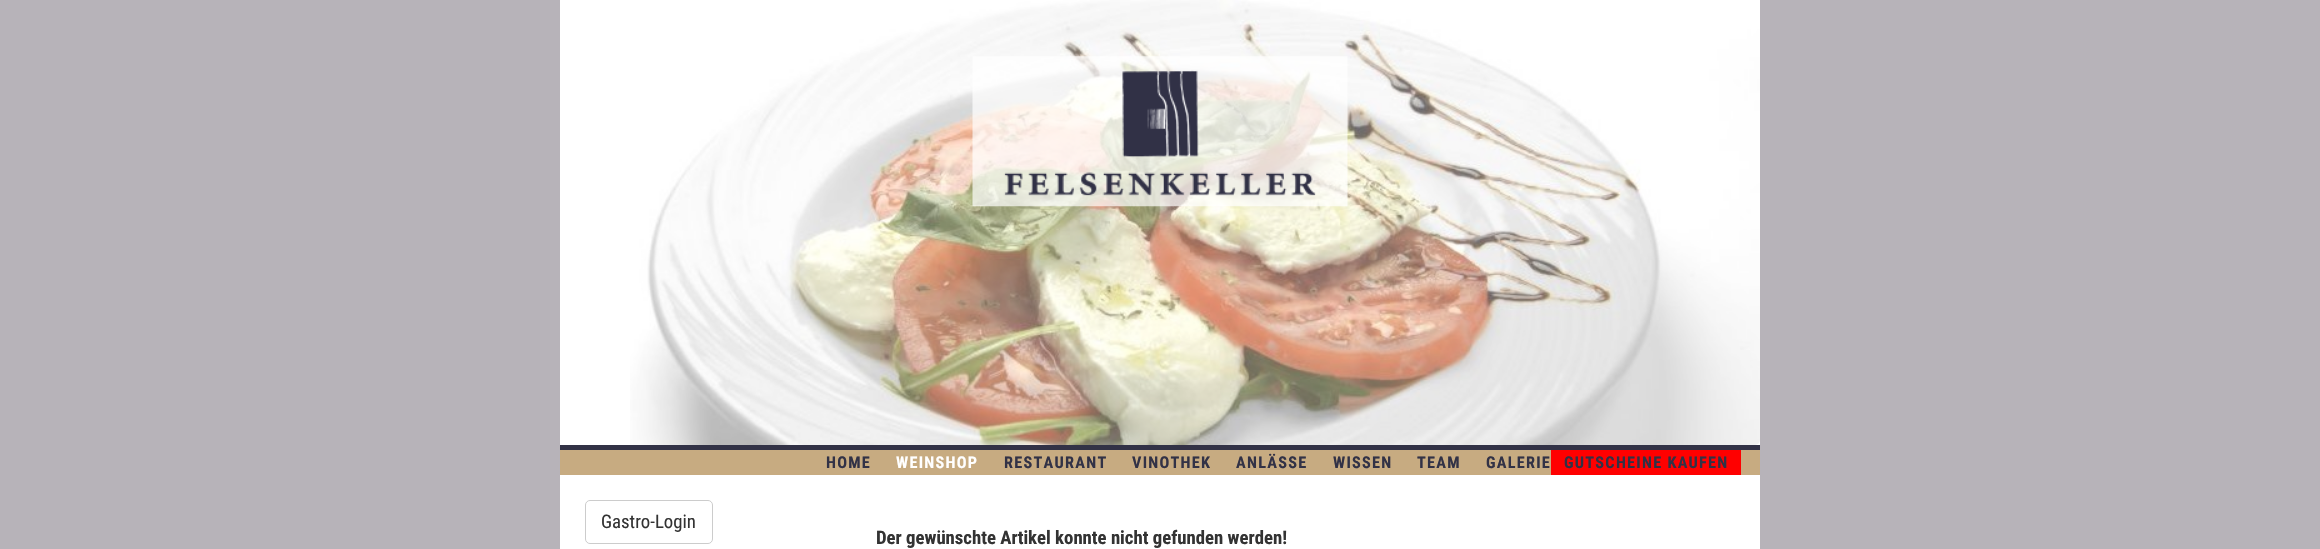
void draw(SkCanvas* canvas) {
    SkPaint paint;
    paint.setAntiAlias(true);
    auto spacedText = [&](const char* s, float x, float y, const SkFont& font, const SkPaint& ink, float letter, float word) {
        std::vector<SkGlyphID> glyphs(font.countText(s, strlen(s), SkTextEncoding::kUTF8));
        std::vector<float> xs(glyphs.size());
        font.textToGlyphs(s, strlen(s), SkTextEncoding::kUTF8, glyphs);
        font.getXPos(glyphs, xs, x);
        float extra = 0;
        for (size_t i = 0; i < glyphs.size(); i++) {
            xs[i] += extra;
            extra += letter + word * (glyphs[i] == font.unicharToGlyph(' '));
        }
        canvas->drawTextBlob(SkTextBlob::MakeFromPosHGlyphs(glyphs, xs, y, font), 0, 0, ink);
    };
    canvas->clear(0xFFB7B3B9);
    paint.setColor(0xFFFFFFFF);
    canvas->drawRect(SkRect::MakeXYWH(560, 0, 1200, 549), paint);
    canvas->drawImageRect(SkImages::DeferredFromEncodedData(SkData::MakeFromFileName("img1.png")), SkRect::MakeXYWH(630, 0, 1130, 445), SkSamplingOptions());
    canvas->drawImageRect(SkImages::DeferredFromEncodedData(SkData::MakeFromFileName("img2.png")), SkRect::MakeXYWH(972, 56, 376, 151), SkSamplingOptions());
    paint.setColor(0xFFC7AB81);
    canvas->drawRect(SkRect::MakeXYWH(560, 450, 1200, 25), paint);
    paint.setColor(0xFF323246);
    canvas->drawRect(SkRect::MakeXYWH(560, 445, 1200, 5), paint);
    SkFont font1(fontMgr->matchFamilyStyle("Roboto Condensed", SkFontStyle::Bold()), 16.25f);
    font1.setSubpixel(true);
    spacedText("HOME", 826, 468, font1, paint, 1.25f, 0);
    paint.setColor(0xFFFFFFFF);
    spacedText("WEINSHOP", 896, 468, font1, paint, 1.25f, 0);
    paint.setColor(0xFF323246);
    spacedText("RESTAURANT", 1004, 468, font1, paint, 1.25f, 0);
    spacedText("VINOTHEK", 1132, 468, font1, paint, 1.25f, 0);
    spacedText("ANLÄSSE", 1236, 468, font1, paint, 1.25f, 0);
    spacedText("WISSEN", 1333, 468, font1, paint, 1.25f, 0);
    spacedText("TEAM", 1417, 468, font1, paint, 1.25f, 0);
    spacedText("GALERIE", 1486, 468, font1, paint, 1.25f, 0);
    paint.setColor(0xFFFF0000);
    canvas->drawRect(SkRect::MakeXYWH(1551, 450, 190, 25), paint);
    paint.setColor(0xFF323246);
    spacedText("GUTSCHEINE KAUFEN", 1564, 468, font1, paint, 1.25f, 0);
    paint.setStyle(SkPaint::kStroke_Style);
    paint.setStrokeWidth(1);
    paint.setColor(0xFFCCCCCC);
    canvas->drawRoundRect(SkRect::MakeXYWH(585.5f, 500.5f, 127, 43), 4.5f, 4.5f, paint);
    SkFont font2(fontMgr->matchFamilyStyle("Roboto Condensed", SkFontStyle::Normal()), 18.75f);
    font2.setSubpixel(true);
    paint.setStyle(SkPaint::kFill_Style);
    paint.setColor(0xFF333333);
    canvas->drawString("Gastro-Login", 601, 528, font2, paint);
    SkFont font3(fontMgr->matchFamilyStyle("Roboto Condensed", SkFontStyle::Bold()), 18.75f);
    font3.setSubpixel(true);
    canvas->drawString("Der gewünschte Artikel konnte nicht gefunden werden!", 876, 544, font3, paint);
}
